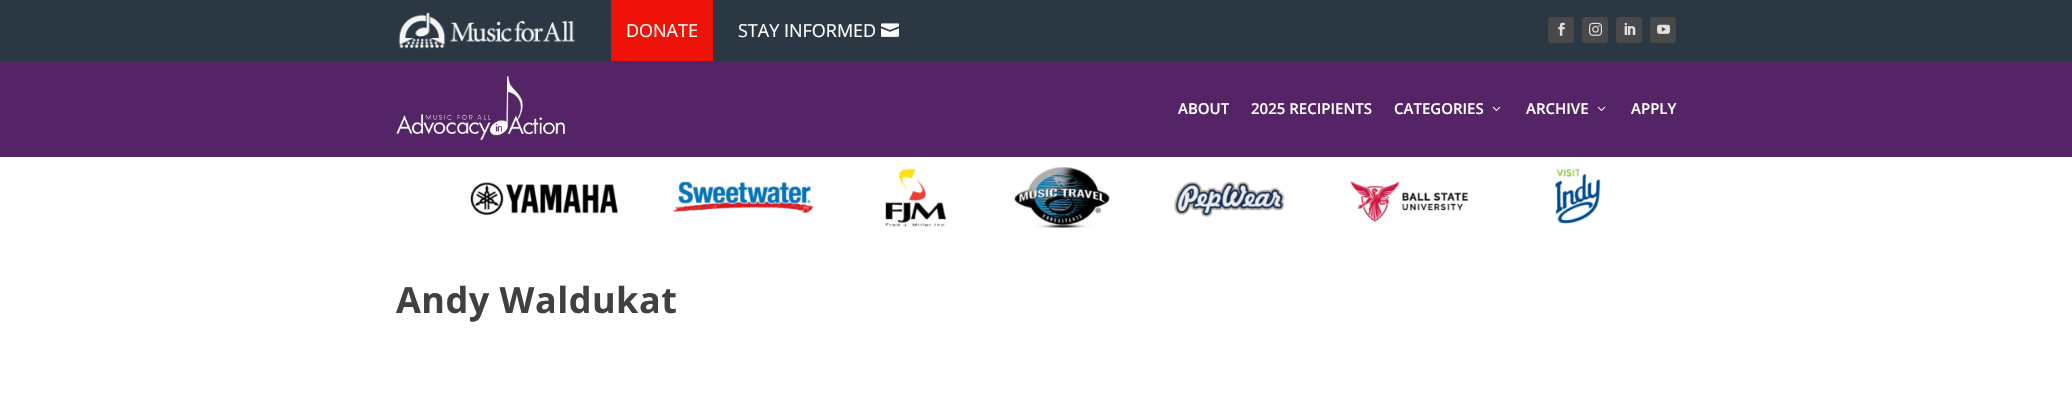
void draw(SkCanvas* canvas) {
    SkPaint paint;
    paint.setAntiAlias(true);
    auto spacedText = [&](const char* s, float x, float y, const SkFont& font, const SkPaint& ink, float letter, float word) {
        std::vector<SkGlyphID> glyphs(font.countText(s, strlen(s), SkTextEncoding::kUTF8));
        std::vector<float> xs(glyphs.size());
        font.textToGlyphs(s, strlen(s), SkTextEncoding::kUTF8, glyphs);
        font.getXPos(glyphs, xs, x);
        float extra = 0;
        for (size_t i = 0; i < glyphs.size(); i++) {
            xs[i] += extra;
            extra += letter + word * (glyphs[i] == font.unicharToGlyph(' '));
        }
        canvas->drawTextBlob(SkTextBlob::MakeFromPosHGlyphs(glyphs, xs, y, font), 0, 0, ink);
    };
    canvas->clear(0xFFFFFFFF);
    paint.setColor(0xFF2B3843);
    canvas->drawRect(SkRect::MakeXYWH(0, 0, 2072, 61), paint);
    canvas->drawImageRect(SkImages::DeferredFromEncodedData(SkData::MakeFromFileName("img1.png")), SkRect::MakeXYWH(398, 12, 177, 37), SkSamplingOptions());
    paint.setColor(0xFFEF1209);
    canvas->drawRect(SkRect::MakeXYWH(611, 0, 102, 61), paint);
    SkFont font1(fontMgr->matchFamilyStyle("Open Sans", SkFontStyle::Normal()), 18);
    font1.setSubpixel(true);
    paint.setColor(0xFFFFFFFF);
    canvas->drawString("DONATE", 626, 37, font1, paint);
    canvas->drawString("STAY INFORMED", 738, 37, font1, paint);
    canvas->drawImageRect(SkImages::DeferredFromEncodedData(SkData::MakeFromFileName("img2.png")), SkRect::MakeXYWH(881, 23, 18, 14), SkSamplingOptions());
    paint.setColor(0xFF494949);
    canvas->drawRoundRect(SkRect::MakeXYWH(1548, 17, 26, 26), 3, 3, paint);
    canvas->drawImageRect(SkImages::DeferredFromEncodedData(SkData::MakeFromFileName("img3.png")), SkRect::MakeXYWH(1558, 22, 7, 14), SkSamplingOptions());
    canvas->drawRoundRect(SkRect::MakeXYWH(1582, 17, 26, 26), 3, 3, paint);
    canvas->drawImageRect(SkImages::DeferredFromEncodedData(SkData::MakeFromFileName("img4.png")), SkRect::MakeXYWH(1589, 22, 13, 14), SkSamplingOptions());
    canvas->drawRoundRect(SkRect::MakeXYWH(1616, 17, 26, 26), 3, 3, paint);
    canvas->drawImageRect(SkImages::DeferredFromEncodedData(SkData::MakeFromFileName("img5.png")), SkRect::MakeXYWH(1624, 22, 12, 13), SkSamplingOptions());
    canvas->drawRoundRect(SkRect::MakeXYWH(1650, 17, 26, 26), 3, 3, paint);
    canvas->drawImageRect(SkImages::DeferredFromEncodedData(SkData::MakeFromFileName("img6.png")), SkRect::MakeXYWH(1657, 24, 13, 10), SkSamplingOptions());
    paint.setColor(0xFF542467);
    canvas->drawRect(SkRect::MakeXYWH(0, 61, 2072, 96), paint);
    canvas->drawImageRect(SkImages::DeferredFromEncodedData(SkData::MakeFromFileName("img7.png")), SkRect::MakeXYWH(396, 76, 169, 64), SkSamplingOptions());
    SkFont font2(fontMgr->matchFamilyStyle("Open Sans", SkFontStyle(600, SkFontStyle::kNormal_Width, SkFontStyle::kUpright_Slant)), 15);
    font2.setSubpixel(true);
    paint.setColor(0xFFFFFFFF);
    canvas->drawString("ABOUT", 1178, 114, font2, paint);
    canvas->drawString("2025 RECIPIENTS", 1251, 114, font2, paint);
    canvas->drawString("CATEGORIES", 1394, 114, font2, paint);
    canvas->drawImageRect(SkImages::DeferredFromEncodedData(SkData::MakeFromFileName("img8.png")), SkRect::MakeXYWH(1492, 106, 9, 5), SkSamplingOptions());
    canvas->drawString("ARCHIVE", 1526, 114, font2, paint);
    canvas->drawImageRect(SkImages::DeferredFromEncodedData(SkData::MakeFromFileName("img8.png")), SkRect::MakeXYWH(1597, 106, 9, 5), SkSamplingOptions());
    canvas->drawString("APPLY", 1631, 114, font2, paint);
    canvas->drawImageRect(SkImages::DeferredFromEncodedData(SkData::MakeFromFileName("img9.png")), SkRect::MakeXYWH(470, 167, 1131, 61), SkSamplingOptions());
    SkFont font3(fontMgr->matchFamilyStyle("Open Sans", SkFontStyle::Bold()), 36);
    font3.setSubpixel(true);
    paint.setColor(0xFF404040);
    spacedText("Andy Waldukat", 396, 313, font3, paint, 0.5f, 0);
}
